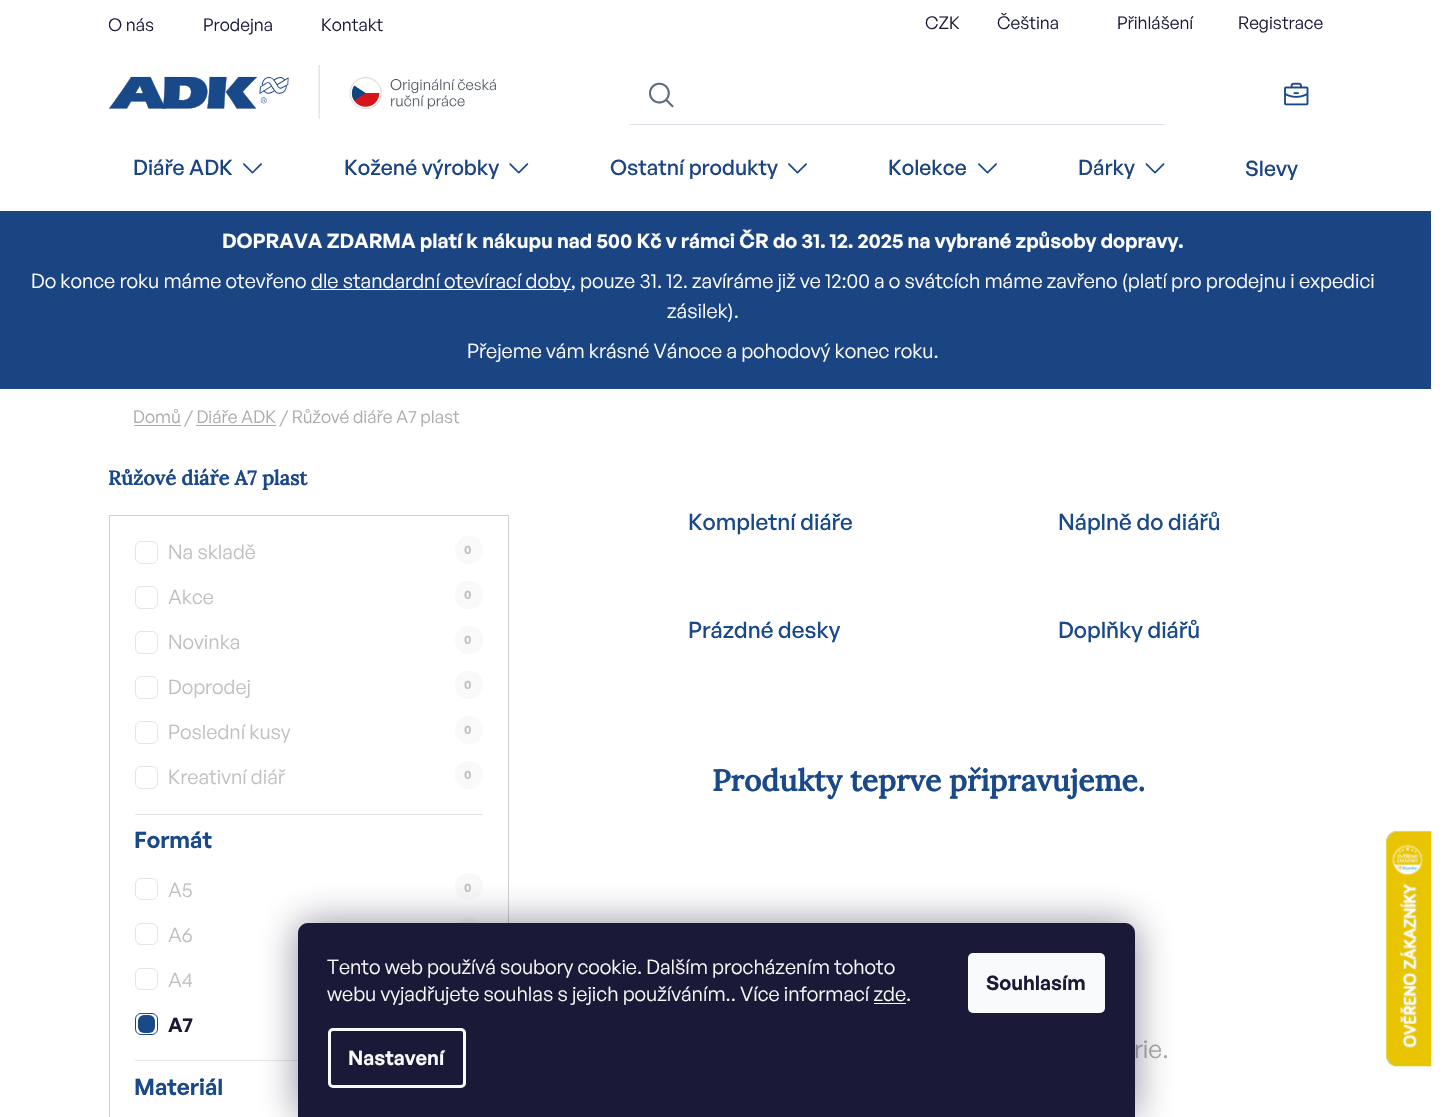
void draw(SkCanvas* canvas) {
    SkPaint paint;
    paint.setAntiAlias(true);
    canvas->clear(0xFFFFFFFF);
    canvas->save();
    canvas->clipRect(SkRect::MakeXYWH(109, 8, 607, 31));
    SkFont font1(fontMgr->matchFamilyStyle("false", SkFontStyle::Normal()), 17.5f);
    font1.setSubpixel(true);
    paint.setColor(0xFF1A1937);
    canvas->drawString("O nás", 108, 31, font1, paint);
    canvas->restore();
    canvas->drawString("Prodejna", 203, 31, font1, paint);
    canvas->drawString("Kontakt", 321, 31, font1, paint);
    canvas->drawString("CZK", 925, 29, font1, paint);
    canvas->drawString("Čeština", 997, 29, font1, paint);
    canvas->drawString("Přihlášení", 1117, 29, font1, paint);
    canvas->drawString("Registrace", 1238, 29, font1, paint);
    canvas->drawImageRect(SkImages::DeferredFromEncodedData(SkData::MakeFromFileName("img1.png")), SkRect::MakeXYWH(109, 65, 387, 54), SkSamplingOptions());
    canvas->drawImageRect(SkImages::DeferredFromEncodedData(SkData::MakeFromFileName("img2.png")), SkRect::MakeXYWH(649, 82, 25, 26), SkSamplingOptions());
    paint.setColor(0xFFDADDE7);
    canvas->drawPath(SkPathBuilder().moveTo(1165, 125).lineTo(630, 125).lineTo(631, 124).lineTo(1164, 124).close().detach(), paint);
    canvas->drawImageRect(SkImages::DeferredFromEncodedData(SkData::MakeFromFileName("img3.png")), SkRect::MakeXYWH(1284, 82, 25, 24), SkSamplingOptions());
    SkFont font2(fontMgr->matchFamilyStyle("General Sans", SkFontStyle(500, SkFontStyle::kNormal_Width, SkFontStyle::kUpright_Slant)), 21.25f);
    font2.setSubpixel(true);
    paint.setColor(0xFF1B4482);
    canvas->drawString("Diáře ADK", 133, 175, font2, paint);
    canvas->drawImageRect(SkImages::DeferredFromEncodedData(SkData::MakeFromFileName("img4.png")), SkRect::MakeXYWH(243, 163, 19, 11), SkSamplingOptions());
    canvas->drawString("Kožené výrobky", 344, 175, font2, paint);
    canvas->drawImageRect(SkImages::DeferredFromEncodedData(SkData::MakeFromFileName("img5.png")), SkRect::MakeXYWH(509, 163, 20, 11), SkSamplingOptions());
    canvas->drawString("Ostatní produkty", 610, 175, font2, paint);
    canvas->drawImageRect(SkImages::DeferredFromEncodedData(SkData::MakeFromFileName("img6.png")), SkRect::MakeXYWH(788, 163, 19, 11), SkSamplingOptions());
    canvas->drawString("Kolekce", 888, 175, font2, paint);
    canvas->drawImageRect(SkImages::DeferredFromEncodedData(SkData::MakeFromFileName("img6.png")), SkRect::MakeXYWH(978, 163, 19, 11), SkSamplingOptions());
    canvas->drawString("Dárky", 1078, 175, font2, paint);
    canvas->drawImageRect(SkImages::DeferredFromEncodedData(SkData::MakeFromFileName("img7.png")), SkRect::MakeXYWH(1145, 163, 20, 11), SkSamplingOptions());
    canvas->drawString("Slevy", 1245, 176, font2, paint);
    canvas->drawRect(SkRect::MakeXYWH(0, 211, 1431, 178), paint);
    SkFont font3(fontMgr->matchFamilyStyle("General Sans", SkFontStyle(600, SkFontStyle::kNormal_Width, SkFontStyle::kUpright_Slant)), 20);
    font3.setSubpixel(true);
    paint.setColor(0xFFFFFFFF);
    canvas->drawString("DOPRAVA ZDARMA platí k nákupu nad 500 Kč v rámci ČR do 31. 12. 2025 na vybrané způsoby dopravy.", 222, 248, font3, paint);
    SkFont font4(fontMgr->matchFamilyStyle("false", SkFontStyle::Normal()), 20);
    font4.setSubpixel(true);
    canvas->drawString("Do konce roku máme otevřeno", 31, 288, font4, paint);
    canvas->drawRect(SkRect::MakeXYWH(311, 289, 260, 1), paint);
    canvas->drawString("dle standardní otevírací doby, pouze 31. 12. zavíráme již ve 12:00 a o svátcích máme zavřeno (platí pro prodejnu i expedici", 311, 288, font4, paint);
    canvas->drawString("zásilek).", 667, 318, font4, paint);
    canvas->drawString("Přejeme vám krásné Vánoce a pohodový konec roku.", 467, 358, font4, paint);
    paint.setColor(0xFFAAAAAA);
    canvas->drawRect(SkRect::MakeXYWH(134, 425, 47, 1), paint);
    canvas->drawString("Domů / Diáře ADK / Růžové diáře A7 plast", 133, 423, font1, paint);
    canvas->drawRect(SkRect::MakeXYWH(196, 425, 80, 1), paint);
    SkFont font5(fontMgr->matchFamilyStyle("Lora", SkFontStyle::Bold()), 20);
    font5.setSubpixel(true);
    paint.setColor(0xFF1A4989);
    canvas->drawString("Růžové diáře A7 plast", 108, 485, font5, paint);
    paint.setStyle(SkPaint::kStroke_Style);
    paint.setStrokeWidth(1);
    paint.setColor(0xFFCFCFCF);
    canvas->drawRect(SkRect::MakeXYWH(109.5f, 515.5f, 399, 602), paint);
    paint.setColor(0xFFE5E5E5);
    canvas->drawRoundRect(SkRect::MakeXYWH(135.5f, 541.5f, 22, 22), 5.5f, 5.5f, paint);
    paint.setStyle(SkPaint::kFill_Style);
    paint.setColor(0xFFBFBFBF);
    canvas->drawString("Na skladě", 168, 559, font4, paint);
    paint.setColor(0xFFF9F9F9);
    canvas->drawCircle(469, 550, 14, paint);
    SkFont font6(fontMgr->matchFamilyStyle("General Sans", SkFontStyle(600, SkFontStyle::kNormal_Width, SkFontStyle::kUpright_Slant)), 12);
    font6.setSubpixel(true);
    paint.setColor(0xFFBFBFBF);
    canvas->drawString("0", 464, 554, font6, paint);
    paint.setStyle(SkPaint::kStroke_Style);
    paint.setColor(0xFFE5E5E5);
    canvas->drawRoundRect(SkRect::MakeXYWH(135.5f, 586.5f, 22, 22), 5.5f, 5.5f, paint);
    paint.setStyle(SkPaint::kFill_Style);
    paint.setColor(0xFFBFBFBF);
    canvas->drawString("Akce", 168, 604, font4, paint);
    paint.setColor(0xFFF9F9F9);
    canvas->drawCircle(469, 595, 14, paint);
    paint.setColor(0xFFBFBFBF);
    canvas->drawString("0", 464, 599, font6, paint);
    paint.setStyle(SkPaint::kStroke_Style);
    paint.setColor(0xFFE5E5E5);
    canvas->drawRoundRect(SkRect::MakeXYWH(135.5f, 631.5f, 22, 22), 5.5f, 5.5f, paint);
    paint.setStyle(SkPaint::kFill_Style);
    paint.setColor(0xFFBFBFBF);
    canvas->drawString("Novinka", 168, 649, font4, paint);
    paint.setColor(0xFFF9F9F9);
    canvas->drawCircle(469, 640, 14, paint);
    paint.setColor(0xFFBFBFBF);
    canvas->drawString("0", 464, 644, font6, paint);
    paint.setStyle(SkPaint::kStroke_Style);
    paint.setColor(0xFFE5E5E5);
    canvas->drawRoundRect(SkRect::MakeXYWH(135.5f, 676.5f, 22, 22), 5.5f, 5.5f, paint);
    paint.setStyle(SkPaint::kFill_Style);
    paint.setColor(0xFFBFBFBF);
    canvas->drawString("Doprodej", 168, 694, font4, paint);
    paint.setColor(0xFFF9F9F9);
    canvas->drawCircle(469, 685, 14, paint);
    paint.setColor(0xFFBFBFBF);
    canvas->drawString("0", 464, 689, font6, paint);
    paint.setStyle(SkPaint::kStroke_Style);
    paint.setColor(0xFFE5E5E5);
    canvas->drawRoundRect(SkRect::MakeXYWH(135.5f, 721.5f, 22, 22), 5.5f, 5.5f, paint);
    paint.setStyle(SkPaint::kFill_Style);
    paint.setColor(0xFFBFBFBF);
    canvas->drawString("Poslední kusy", 168, 739, font4, paint);
    paint.setColor(0xFFF9F9F9);
    canvas->drawCircle(469, 730, 14, paint);
    paint.setColor(0xFFBFBFBF);
    canvas->drawString("0", 464, 734, font6, paint);
    paint.setStyle(SkPaint::kStroke_Style);
    paint.setColor(0xFFE5E5E5);
    canvas->drawRoundRect(SkRect::MakeXYWH(135.5f, 766.5f, 22, 22), 5.5f, 5.5f, paint);
    paint.setStyle(SkPaint::kFill_Style);
    paint.setColor(0xFFBFBFBF);
    canvas->drawString("Kreativní diář", 168, 784, font4, paint);
    paint.setColor(0xFFF9F9F9);
    canvas->drawCircle(469, 775, 14, paint);
    paint.setColor(0xFFBFBFBF);
    canvas->drawString("0", 464, 779, font6, paint);
    paint.setColor(0xFFE6E6E6);
    canvas->drawRect(SkRect::MakeXYWH(135, 814, 348, 1), paint);
    SkFont font7(fontMgr->matchFamilyStyle("General Sans", SkFontStyle(600, SkFontStyle::kNormal_Width, SkFontStyle::kUpright_Slant)), 22.5f);
    font7.setSubpixel(true);
    paint.setColor(0xFF1A4989);
    canvas->drawString("Formát", 134, 848, font7, paint);
    paint.setStyle(SkPaint::kStroke_Style);
    paint.setColor(0xFFE5E5E5);
    canvas->drawRoundRect(SkRect::MakeXYWH(135.5f, 878.5f, 22, 21), 5.5f, 5.5f, paint);
    paint.setStyle(SkPaint::kFill_Style);
    paint.setColor(0xFFBFBFBF);
    canvas->drawString("A5", 168, 897, font4, paint);
    paint.setColor(0xFFF9F9F9);
    canvas->drawRoundRect(SkRect::MakeXYWH(455, 873, 28, 27), 13.5f, 13.5f, paint);
    paint.setColor(0xFFBFBFBF);
    canvas->drawString("0", 464, 892, font6, paint);
    paint.setStyle(SkPaint::kStroke_Style);
    paint.setColor(0xFFE5E5E5);
    canvas->drawRoundRect(SkRect::MakeXYWH(135.5f, 923.5f, 22, 21), 5.5f, 5.5f, paint);
    paint.setStyle(SkPaint::kFill_Style);
    paint.setColor(0xFFBFBFBF);
    canvas->drawString("A6", 168, 942, font4, paint);
    paint.setColor(0xFFF9F9F9);
    canvas->drawRoundRect(SkRect::MakeXYWH(455, 918, 28, 27), 13.5f, 13.5f, paint);
    paint.setStyle(SkPaint::kStroke_Style);
    paint.setColor(0xFFE5E5E5);
    canvas->drawRoundRect(SkRect::MakeXYWH(135.5f, 968.5f, 22, 21), 5.5f, 5.5f, paint);
    paint.setStyle(SkPaint::kFill_Style);
    paint.setColor(0xFFBFBFBF);
    canvas->drawString("A4", 168, 987, font4, paint);
    paint.setStyle(SkPaint::kStroke_Style);
    paint.setColor(0xFF1A4989);
    canvas->drawRoundRect(SkRect::MakeXYWH(135.5f, 1013.5f, 22, 21), 5.5f, 5.5f, paint);
    paint.setStyle(SkPaint::kFill_Style);
    canvas->drawRoundRect(SkRect::MakeXYWH(138, 1015, 17, 18), 6, 6, paint);
    paint.setColor(0xFF1A1937);
    canvas->drawString("A7", 168, 1032, font3, paint);
    paint.setColor(0xFFE6E6E6);
    canvas->drawRect(SkRect::MakeXYWH(135, 1060, 163, 1), paint);
    paint.setColor(0xFF1A4989);
    canvas->drawString("Materiál", 134, 1095, font7, paint);
    SkFont font8(fontMgr->matchFamilyStyle("General Sans", SkFontStyle(500, SkFontStyle::kNormal_Width, SkFontStyle::kUpright_Slant)), 22.5f);
    font8.setSubpixel(true);
    canvas->drawString("Kompletní diáře", 688, 530, font8, paint);
    canvas->drawString("Náplně do diářů", 1058, 530, font8, paint);
    canvas->drawString("Prázdné desky", 688, 638, font8, paint);
    canvas->drawString("Doplňky diářů", 1058, 638, font8, paint);
    SkFont font9(fontMgr->matchFamilyStyle("Lora", SkFontStyle::Bold()), 30);
    font9.setSubpixel(true);
    canvas->drawString("Produkty teprve připravujeme.", 712, 791, font9, paint);
    SkFont font10(fontMgr->matchFamilyStyle("false", SkFontStyle::Normal()), 25);
    font10.setSubpixel(true);
    paint.setColor(0xFFAAAAAA);
    canvas->drawString("rie.", 1134, 1058, font10, paint);
    canvas->drawImageRect(SkImages::DeferredFromEncodedData(SkData::MakeFromFileName("img8.png")), SkRect::MakeXYWH(1386, 831, 46, 236), SkSamplingOptions());
    paint.setColor(0x801B1939);
    paint.setMaskFilter(SkMaskFilter::MakeBlur(kNormal_SkBlurStyle, 19));
    canvas->drawRoundRect(SkRect::MakeXYWH(298, 923, 837, 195), 10, 10, paint);
    paint.setMaskFilter(nullptr);
    paint.setColor(0xFF1A1937);
    canvas->drawPath(SkPathBuilder().moveTo(308, 923).lineTo(1125, 923).cubicTo(1130.5f, 923, 1135, 927.5f, 1135, 933).lineTo(1135, 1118).lineTo(298, 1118).lineTo(298, 933).cubicTo(298, 927.5f, 302.5f, 923, 308, 923).close().detach(), paint);
    paint.setColor(0xFFF8FAFB);
    canvas->drawString("Tento web používá soubory cookie. Dalším procházením tohoto", 327, 974, font4, paint);
    canvas->drawString("webu vyjadřujete souhlas s jejich používáním.. Více informací zde.", 327, 1001, font4, paint);
    canvas->drawRect(SkRect::MakeXYWH(874, 1003, 32, 1), paint);
    paint.setStyle(SkPaint::kStroke_Style);
    paint.setStrokeWidth(3);
    canvas->drawRoundRect(SkRect::MakeXYWH(329.5f, 1029.5f, 135, 57), 3.5f, 3.5f, paint);
    paint.setStyle(SkPaint::kFill_Style);
    canvas->drawString("Nastavení", 348, 1065, font3, paint);
    canvas->drawRoundRect(SkRect::MakeXYWH(968, 953, 137, 60), 5, 5, paint);
    paint.setColor(0xFF1A1937);
    canvas->drawString("Souhlasím", 986, 990, font3, paint);
}
